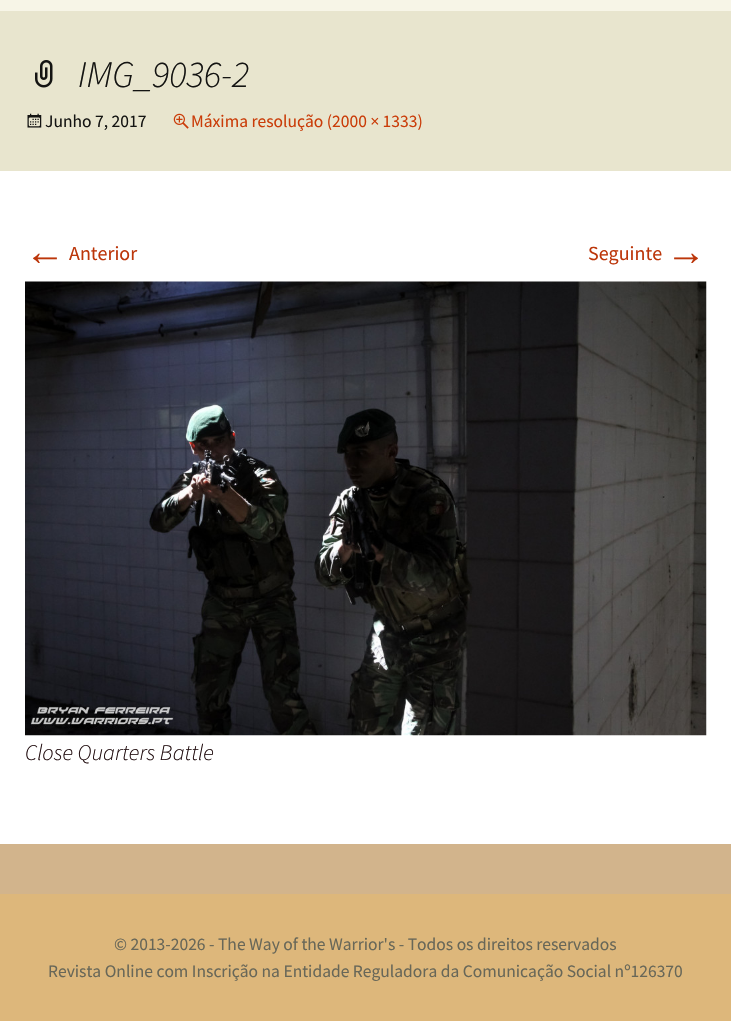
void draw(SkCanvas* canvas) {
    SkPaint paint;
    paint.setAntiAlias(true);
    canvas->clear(0xFFD2B48C);
    paint.setColor(0xFFF7F5E7);
    canvas->drawRect(SkRect::MakeXYWH(0, 0, 731, 11), paint);
    paint.setColor(0xFFE8E5CE);
    canvas->drawRect(SkRect::MakeXYWH(0, 11, 731, 160), paint);
    canvas->drawImageRect(SkImages::DeferredFromEncodedData(SkData::MakeFromFileName("img1.png")), SkRect::MakeXYWH(35, 60, 18, 28), SkSamplingOptions());
    SkFont font1(fontMgr->matchFamilyStyle("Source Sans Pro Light", SkFontStyle(300, SkFontStyle::kNormal_Width, SkFontStyle::kItalic_Slant)), 37.5f);
    font1.setSubpixel(true);
    paint.setColor(0xFF141412);
    canvas->drawString("IMG_9036-2", 78, 87, font1, paint);
    canvas->drawImageRect(SkImages::DeferredFromEncodedData(SkData::MakeFromFileName("img2.png")), SkRect::MakeXYWH(27, 113, 15, 15), SkSamplingOptions());
    SkFont font2(fontMgr->matchFamilyStyle("Source Sans Pro", SkFontStyle::Normal()), 17.5f);
    font2.setSubpixel(true);
    canvas->drawString("Junho 7, 2017", 45, 127, font2, paint);
    canvas->drawImageRect(SkImages::DeferredFromEncodedData(SkData::MakeFromFileName("img3.png")), SkRect::MakeXYWH(173, 113, 16, 16), SkSamplingOptions());
    paint.setColor(0xFFCA3C08);
    canvas->drawString("Máxima resolução (2000 × 1333)", 191, 127, font2, paint);
    paint.setColor(0xFFFFFFFF);
    canvas->drawRect(SkRect::MakeXYWH(0, 171, 731, 673), paint);
    SkFont font3(fontMgr->matchFamilyStyle("Liberation Sans", SkFontStyle::Normal()), 40);
    font3.setSubpixel(true);
    paint.setColor(0xFFBC360A);
    canvas->drawString("←", 25, 265, font3, paint);
    SkFont font4(fontMgr->matchFamilyStyle("Source Sans Pro", SkFontStyle::Normal()), 20);
    font4.setSubpixel(true);
    canvas->drawString("Anterior", 69, 260, font4, paint);
    canvas->drawString("Seguinte", 588, 260, font4, paint);
    canvas->drawString("→", 666, 265, font3, paint);
    canvas->drawImageRect(SkImages::DeferredFromEncodedData(SkData::MakeFromFileName("img4.png")), SkRect::MakeXYWH(25, 281, 682, 455), SkSamplingOptions());
    SkFont font5(fontMgr->matchFamilyStyle("Source Sans Pro Light", SkFontStyle(300, SkFontStyle::kNormal_Width, SkFontStyle::kItalic_Slant)), 22.5f);
    font5.setSubpixel(true);
    paint.setColor(0xFF220E10);
    canvas->drawString("Close Quarters Battle", 25, 760, font5, paint);
    paint.setColor(0xFFDDB77B);
    canvas->drawRect(SkRect::MakeXYWH(0, 894, 731, 127), paint);
    paint.setColor(0xFF686758);
    canvas->drawString("© 2013-2026 - The Way of the Warrior's - Todos os direitos reservados", 114, 950, font2, paint);
    canvas->drawString("Revista Online com Inscrição na Entidade Reguladora da Comunicação Social nº126370", 48, 977, font2, paint);
}
